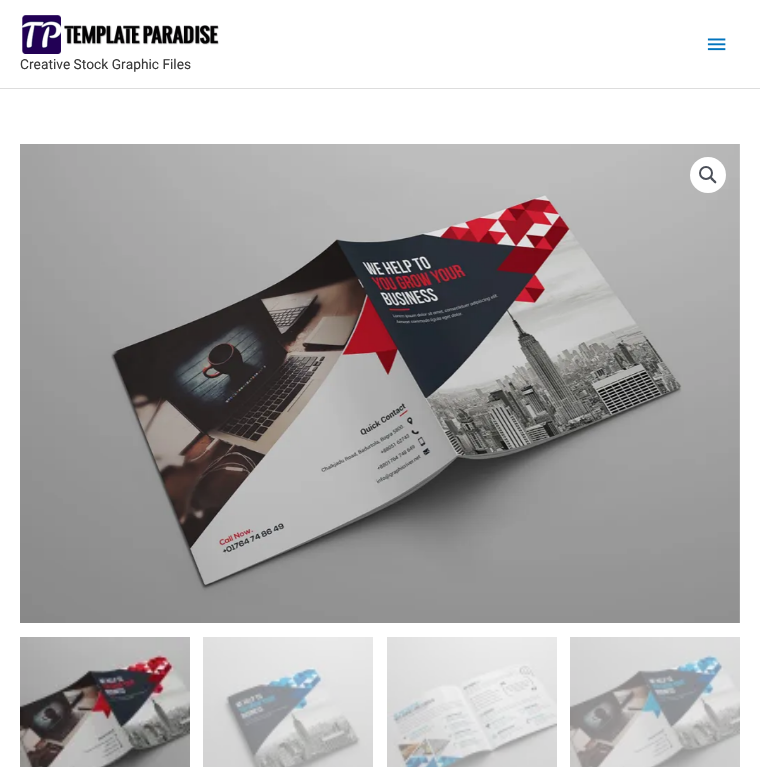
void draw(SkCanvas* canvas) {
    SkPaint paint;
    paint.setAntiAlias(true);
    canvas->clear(0xFFFFFFFF);
    paint.setColor(0xFFDDDDDD);
    canvas->drawRect(SkRect::MakeXYWH(0, 88, 760, 1), paint);
    canvas->drawImageRect(SkImages::DeferredFromEncodedData(SkData::MakeFromFileName("img1.png")), SkRect::MakeXYWH(707, 38, 19, 13), SkSamplingOptions());
    canvas->drawImageRect(SkImages::DeferredFromEncodedData(SkData::MakeFromFileName("img2.png")), SkRect::MakeXYWH(22, 15, 197, 39), SkSamplingOptions());
    SkFont font1(fontMgr->matchFamilyStyle("Roboto", SkFontStyle::Normal()), 13.75f);
    font1.setSubpixel(true);
    paint.setColor(0xFF3A3A3A);
    canvas->drawString("Creative Stock Graphic Files", 20, 69, font1, paint);
    canvas->drawImageRect(SkImages::DeferredFromEncodedData(SkData::MakeFromFileName("img3.png")), SkRect::MakeXYWH(20, 144, 720, 479), SkSamplingOptions());
    paint.setColor(0xFFFFFFFF);
    canvas->drawCircle(708, 175, 18, paint);
    paint.setStyle(SkPaint::kStroke_Style);
    paint.setStrokeWidth(2);
    paint.setColor(0xFF4B4F58);
    canvas->drawCircle(706, 173, 6, paint);
    paint.setStyle(SkPaint::kFill_Style);
    canvas->drawPath(SkPathBuilder().moveTo(710.5f, 177.5f).cubicTo(711.5f, 176, 713.5f, 179, 714, 179.5f).cubicTo(714.5f, 180, 717.5f, 182, 716, 183).cubicTo(715, 184.5f, 713, 181.5f, 712.5f, 181).cubicTo(712, 180.5f, 709.5f, 178.5f, 710.5f, 177.5f).close().detach(), paint);
    canvas->drawImageRect(SkImages::DeferredFromEncodedData(SkData::MakeFromFileName("img4.png")), SkRect::MakeXYWH(20, 637, 170, 130), SkSamplingOptions());
    canvas->drawImageRect(SkImages::DeferredFromEncodedData(SkData::MakeFromFileName("img5.png")), SkRect::MakeXYWH(203, 637, 170, 130), SkSamplingOptions());
    canvas->drawImageRect(SkImages::DeferredFromEncodedData(SkData::MakeFromFileName("img6.png")), SkRect::MakeXYWH(387, 637, 170, 130), SkSamplingOptions());
    canvas->drawImageRect(SkImages::DeferredFromEncodedData(SkData::MakeFromFileName("img7.png")), SkRect::MakeXYWH(570, 637, 170, 130), SkSamplingOptions());
}
